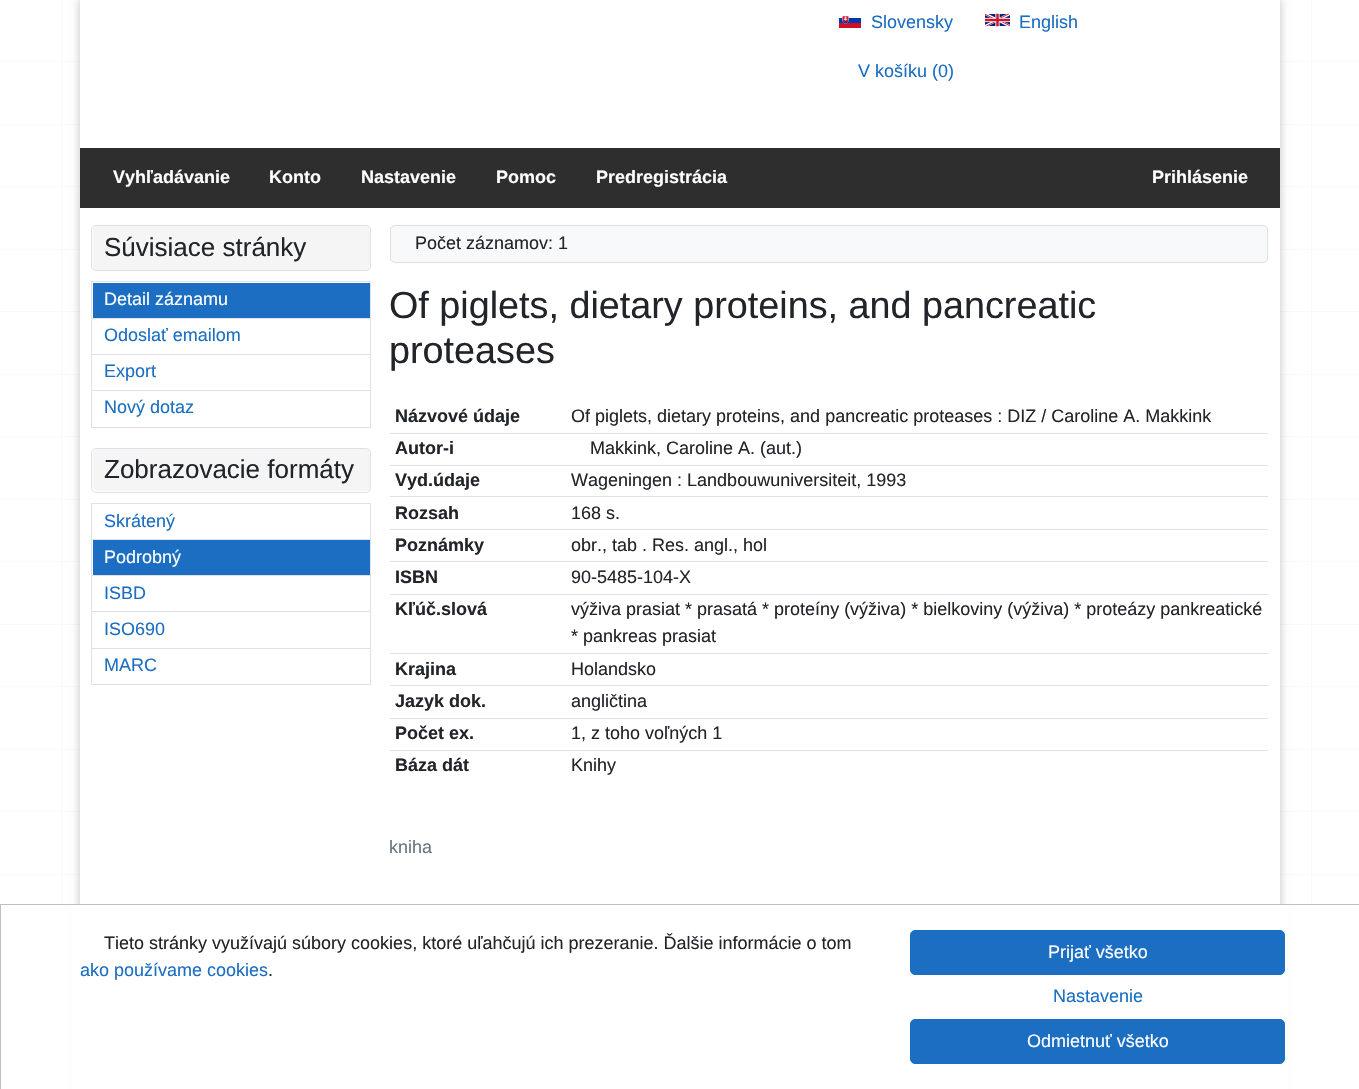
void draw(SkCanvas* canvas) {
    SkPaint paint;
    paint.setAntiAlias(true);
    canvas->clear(0xFFFFFFFF);
    canvas->drawImageRect(SkImages::DeferredFromEncodedData(SkData::MakeFromFileName("img1.png")), SkRect::MakeXYWH(61, 0, 1251, 904), SkSamplingOptions());
    paint.setColor(0xFFF8F9FA);
    canvas->drawRect(SkRect::MakeXYWH(0, 61, 1359, 1), paint);
    canvas->drawRect(SkRect::MakeXYWH(0, 124, 1359, 1), paint);
    canvas->drawRect(SkRect::MakeXYWH(0, 186, 1359, 1), paint);
    canvas->drawRect(SkRect::MakeXYWH(0, 249, 1359, 1), paint);
    canvas->drawRect(SkRect::MakeXYWH(0, 311, 1359, 1), paint);
    canvas->drawRect(SkRect::MakeXYWH(0, 374, 1359, 1), paint);
    canvas->drawRect(SkRect::MakeXYWH(0, 436, 1359, 1), paint);
    canvas->drawRect(SkRect::MakeXYWH(0, 499, 1359, 1), paint);
    canvas->drawRect(SkRect::MakeXYWH(0, 561, 1359, 1), paint);
    canvas->drawRect(SkRect::MakeXYWH(0, 624, 1359, 1), paint);
    canvas->drawRect(SkRect::MakeXYWH(0, 686, 1359, 1), paint);
    canvas->drawRect(SkRect::MakeXYWH(0, 749, 1359, 1), paint);
    canvas->drawRect(SkRect::MakeXYWH(0, 811, 1359, 1), paint);
    canvas->drawRect(SkRect::MakeXYWH(0, 874, 1359, 1), paint);
    paint.setColor(0x33000000);
    paint.setMaskFilter(SkMaskFilter::MakeBlur(kNormal_SkBlurStyle, 4));
    canvas->drawRect(SkRect::MakeXYWH(79, -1, 1202, 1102), paint);
    paint.setMaskFilter(nullptr);
    paint.setColor(0xFFFFFFFF);
    canvas->drawRect(SkRect::MakeXYWH(80, 0, 1200, 904), paint);
    canvas->drawImageRect(SkImages::DeferredFromEncodedData(SkData::MakeFromFileName("img2.png")), SkRect::MakeXYWH(839, 16, 22, 12), SkSamplingOptions());
    SkFont font1(fontMgr->matchFamilyStyle("Liberation Sans", SkFontStyle::Normal()), 18);
    font1.setSubpixel(true);
    paint.setColor(0xFF1B6EC2);
    canvas->drawString("Slovensky", 871, 28, font1, paint);
    canvas->drawImageRect(SkImages::DeferredFromEncodedData(SkData::MakeFromFileName("img3.png")), SkRect::MakeXYWH(985, 13, 25, 14), SkSamplingOptions());
    canvas->drawString("English", 1019, 28, font1, paint);
    canvas->drawString("V košíku (0)", 858, 77, font1, paint);
    paint.setColor(0xFF2E2E2E);
    canvas->drawRect(SkRect::MakeXYWH(80, 148, 1200, 60), paint);
    SkFont font2(fontMgr->matchFamilyStyle("Liberation Sans", SkFontStyle::Bold()), 18);
    font2.setSubpixel(true);
    paint.setColor(0xFFFFFFFF);
    canvas->drawString("Vyhľadávanie", 113, 183, font2, paint);
    canvas->drawString("Konto", 269, 183, font2, paint);
    canvas->drawString("Nastavenie", 361, 183, font2, paint);
    canvas->drawString("Pomoc", 496, 183, font2, paint);
    canvas->drawString("Predregistrácia", 596, 183, font2, paint);
    canvas->drawString("Prihlásenie", 1152, 183, font2, paint);
    paint.setColor(0xFFF5F5F5);
    canvas->drawRoundRect(SkRect::MakeXYWH(93, 226, 277, 44), 4, 4, paint);
    paint.setStyle(SkPaint::kStroke_Style);
    paint.setStrokeWidth(1);
    paint.setColor(0xFFDEE2E6);
    canvas->drawRoundRect(SkRect::MakeXYWH(91.5f, 225.5f, 279, 45), 4.5f, 4.5f, paint);
    SkFont font3(fontMgr->matchFamilyStyle("Liberation Sans", SkFontStyle::Normal()), 26);
    font3.setSubpixel(true);
    paint.setStyle(SkPaint::kFill_Style);
    paint.setColor(0xFF212529);
    canvas->drawString("Súvisiace stránky", 104, 256, font3, paint);
    paint.setColor(0xFFDEE2E6);
    canvas->drawRect(SkRect::MakeXYWH(91, 281, 280, 1), paint);
    canvas->drawRect(SkRect::MakeXYWH(370, 281, 1, 37), paint);
    canvas->drawRect(SkRect::MakeXYWH(91, 281, 1, 37), paint);
    paint.setColor(0xFF1B6EC2);
    canvas->drawRect(SkRect::MakeXYWH(93, 283, 277, 35), paint);
    paint.setColor(0xFFFFFFFF);
    canvas->drawString("Detail záznamu", 104, 305, font1, paint);
    paint.setColor(0xFFDEE2E6);
    canvas->drawRect(SkRect::MakeXYWH(91, 318, 280, 1), paint);
    canvas->drawRect(SkRect::MakeXYWH(370, 318, 1, 36), paint);
    canvas->drawRect(SkRect::MakeXYWH(91, 318, 1, 36), paint);
    paint.setColor(0xFF1B6EC2);
    canvas->drawString("Odoslať emailom", 104, 341, font1, paint);
    paint.setColor(0xFFDEE2E6);
    canvas->drawRect(SkRect::MakeXYWH(91, 354, 280, 1), paint);
    canvas->drawRect(SkRect::MakeXYWH(370, 354, 1, 36), paint);
    canvas->drawRect(SkRect::MakeXYWH(91, 354, 1, 36), paint);
    paint.setColor(0xFF1B6EC2);
    canvas->drawString("Export", 104, 377, font1, paint);
    paint.setStyle(SkPaint::kStroke_Style);
    paint.setColor(0xFFDEE2E6);
    canvas->drawRect(SkRect::MakeXYWH(91.5f, 390.5f, 279, 37), paint);
    paint.setStyle(SkPaint::kFill_Style);
    paint.setColor(0xFF1B6EC2);
    canvas->drawString("Nový dotaz", 104, 413, font1, paint);
    paint.setColor(0xFFF5F5F5);
    canvas->drawRoundRect(SkRect::MakeXYWH(93, 449, 277, 42), 4, 4, paint);
    paint.setStyle(SkPaint::kStroke_Style);
    paint.setColor(0xFFDEE2E6);
    canvas->drawRoundRect(SkRect::MakeXYWH(91.5f, 448.5f, 279, 44), 4.5f, 4.5f, paint);
    paint.setStyle(SkPaint::kFill_Style);
    paint.setColor(0xFF212529);
    canvas->drawString("Zobrazovacie formáty", 104, 478, font3, paint);
    paint.setColor(0xFFDEE2E6);
    canvas->drawRect(SkRect::MakeXYWH(91, 503, 280, 1), paint);
    canvas->drawRect(SkRect::MakeXYWH(370, 503, 1, 36), paint);
    canvas->drawRect(SkRect::MakeXYWH(91, 503, 1, 36), paint);
    paint.setColor(0xFF1B6EC2);
    canvas->drawString("Skrátený", 104, 527, font1, paint);
    paint.setColor(0xFFDEE2E6);
    canvas->drawRect(SkRect::MakeXYWH(91, 539, 280, 1), paint);
    canvas->drawRect(SkRect::MakeXYWH(370, 539, 1, 36), paint);
    canvas->drawRect(SkRect::MakeXYWH(91, 539, 1, 36), paint);
    paint.setColor(0xFF1B6EC2);
    canvas->drawRect(SkRect::MakeXYWH(93, 540, 277, 35), paint);
    paint.setColor(0xFFFFFFFF);
    canvas->drawString("Podrobný", 104, 563, font1, paint);
    paint.setColor(0xFFDEE2E6);
    canvas->drawRect(SkRect::MakeXYWH(91, 575, 280, 1), paint);
    canvas->drawRect(SkRect::MakeXYWH(370, 575, 1, 36), paint);
    canvas->drawRect(SkRect::MakeXYWH(91, 575, 1, 36), paint);
    paint.setColor(0xFF1B6EC2);
    canvas->drawString("ISBD", 104, 599, font1, paint);
    paint.setColor(0xFFDEE2E6);
    canvas->drawRect(SkRect::MakeXYWH(91, 611, 280, 1), paint);
    canvas->drawRect(SkRect::MakeXYWH(370, 611, 1, 37), paint);
    canvas->drawRect(SkRect::MakeXYWH(91, 611, 1, 37), paint);
    paint.setColor(0xFF1B6EC2);
    canvas->drawString("ISO690", 104, 635, font1, paint);
    paint.setStyle(SkPaint::kStroke_Style);
    paint.setColor(0xFFDEE2E6);
    canvas->drawRect(SkRect::MakeXYWH(91.5f, 648.5f, 279, 36), paint);
    paint.setStyle(SkPaint::kFill_Style);
    paint.setColor(0xFF1B6EC2);
    canvas->drawString("MARC", 104, 671, font1, paint);
    paint.setColor(0xFFF8F9FA);
    canvas->drawRoundRect(SkRect::MakeXYWH(390, 225, 878, 38), 5, 5, paint);
    paint.setStyle(SkPaint::kStroke_Style);
    paint.setColor(0x1F333333);
    canvas->drawRoundRect(SkRect::MakeXYWH(390.5f, 225.5f, 877, 37), 4.5f, 4.5f, paint);
    paint.setStyle(SkPaint::kFill_Style);
    paint.setColor(0xFF212529);
    canvas->drawString("Počet záznamov: 1", 415, 249, font1, paint);
    SkFont font4(fontMgr->matchFamilyStyle("Liberation Sans", SkFontStyle::Normal()), 37.75f);
    font4.setSubpixel(true);
    canvas->drawString("Of piglets, dietary proteins, and pancreatic", 389, 318, font4, paint);
    canvas->drawString("proteases", 389, 363, font4, paint);
    canvas->drawString("Názvové údaje", 395, 422, font2, paint);
    canvas->drawString("Of piglets, dietary proteins, and pancreatic proteases : DIZ / Caroline A. Makkink", 571, 422, font1, paint);
    canvas->drawString("Autor-i", 395, 454, font2, paint);
    paint.setColor(0xFFDEE2E6);
    canvas->drawRect(SkRect::MakeXYWH(390, 433, 878, 1), paint);
    paint.setColor(0xFF212529);
    canvas->drawString("Makkink, Caroline A. (aut.)", 590, 454, font1, paint);
    canvas->drawString("Vyd.údaje", 395, 486, font2, paint);
    paint.setColor(0xFFDEE2E6);
    canvas->drawRect(SkRect::MakeXYWH(390, 465, 878, 1), paint);
    paint.setColor(0xFF212529);
    canvas->drawString("Wageningen : Landbouwuniversiteit, 1993", 571, 486, font1, paint);
    canvas->drawString("Rozsah", 395, 519, font2, paint);
    paint.setColor(0xFFDEE2E6);
    canvas->drawRect(SkRect::MakeXYWH(390, 496, 878, 1), paint);
    paint.setColor(0xFF212529);
    canvas->drawString("168 s.", 571, 519, font1, paint);
    canvas->drawString("Poznámky", 395, 551, font2, paint);
    paint.setColor(0xFFDEE2E6);
    canvas->drawRect(SkRect::MakeXYWH(390, 529, 878, 1), paint);
    paint.setColor(0xFF212529);
    canvas->drawString("obr., tab . Res. angl., hol", 571, 551, font1, paint);
    canvas->drawString("ISBN", 395, 583, font2, paint);
    paint.setColor(0xFFDEE2E6);
    canvas->drawRect(SkRect::MakeXYWH(390, 561, 878, 1), paint);
    paint.setColor(0xFF212529);
    canvas->drawString("90-5485-104-X", 571, 583, font1, paint);
    canvas->drawString("Kľúč.slová", 395, 615, font2, paint);
    paint.setColor(0xFFDEE2E6);
    canvas->drawRect(SkRect::MakeXYWH(390, 594, 878, 1), paint);
    paint.setColor(0xFF212529);
    canvas->drawString("výživa prasiat * prasatá * proteíny (výživa) * bielkoviny (výživa) * proteázy pankreatické", 571, 615, font1, paint);
    canvas->drawString("* pankreas prasiat", 571, 642, font1, paint);
    canvas->drawString("Krajina", 395, 675, font2, paint);
    paint.setColor(0xFFDEE2E6);
    canvas->drawRect(SkRect::MakeXYWH(390, 653, 878, 1), paint);
    paint.setColor(0xFF212529);
    canvas->drawString("Holandsko", 571, 675, font1, paint);
    canvas->drawString("Jazyk dok.", 395, 707, font2, paint);
    paint.setColor(0xFFDEE2E6);
    canvas->drawRect(SkRect::MakeXYWH(390, 685, 878, 1), paint);
    paint.setColor(0xFF212529);
    canvas->drawString("angličtina", 571, 707, font1, paint);
    canvas->drawString("Počet ex.", 395, 739, font2, paint);
    paint.setColor(0xFFDEE2E6);
    canvas->drawRect(SkRect::MakeXYWH(390, 718, 878, 1), paint);
    paint.setColor(0xFF212529);
    canvas->drawString("1, z toho voľných 1", 571, 739, font1, paint);
    canvas->drawString("Báza dát", 395, 771, font2, paint);
    paint.setColor(0xFFDEE2E6);
    canvas->drawRect(SkRect::MakeXYWH(390, 750, 878, 1), paint);
    paint.setColor(0xFF212529);
    canvas->drawString("Knihy", 571, 771, font1, paint);
    paint.setColor(0xFF6C757D);
    canvas->drawString("kniha", 389, 853, font1, paint);
    paint.setColor(0xFFFFFFFF);
    canvas->drawRect(SkRect::MakeXYWH(72, 905, 1216, 184), paint);
    paint.setStyle(SkPaint::kStroke_Style);
    paint.setColor(0xFFC0C0C0);
    canvas->drawRect(SkRect::MakeXYWH(0.5f, 904.5f, 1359, 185), paint);
    paint.setStyle(SkPaint::kFill_Style);
    paint.setColor(0xFF212529);
    canvas->drawString("Tieto stránky využívajú súbory cookies, ktoré uľahčujú ich prezeranie. Ďalšie informácie o tom", 104, 949, font1, paint);
    paint.setColor(0xFF1B6EC2);
    canvas->drawString("ako používame cookies", 80, 976, font1, paint);
    paint.setColor(0xFF212529);
    canvas->drawString(".", 268, 976, font1, paint);
    paint.setColor(0xFF1B6EC2);
    canvas->drawRoundRect(SkRect::MakeXYWH(910.5f, 930.5f, 374, 44), 4.5f, 4.5f, paint);
    paint.setStyle(SkPaint::kStroke_Style);
    canvas->drawRoundRect(SkRect::MakeXYWH(910.5f, 930.5f, 374, 44), 4.5f, 4.5f, paint);
    paint.setStyle(SkPaint::kFill_Style);
    paint.setColor(0xFFFFFFFF);
    canvas->drawString("Prijať všetko", 1048, 958, font1, paint);
    paint.setColor(0xFF1B6EC2);
    canvas->drawString("Nastavenie", 1053, 1002, font1, paint);
    canvas->drawRoundRect(SkRect::MakeXYWH(910.5f, 1019.5f, 374, 44), 4.5f, 4.5f, paint);
    paint.setStyle(SkPaint::kStroke_Style);
    canvas->drawRoundRect(SkRect::MakeXYWH(910.5f, 1019.5f, 374, 44), 4.5f, 4.5f, paint);
    paint.setStyle(SkPaint::kFill_Style);
    paint.setColor(0xFFFFFFFF);
    canvas->drawString("Odmietnuť všetko", 1027, 1047, font1, paint);
}
